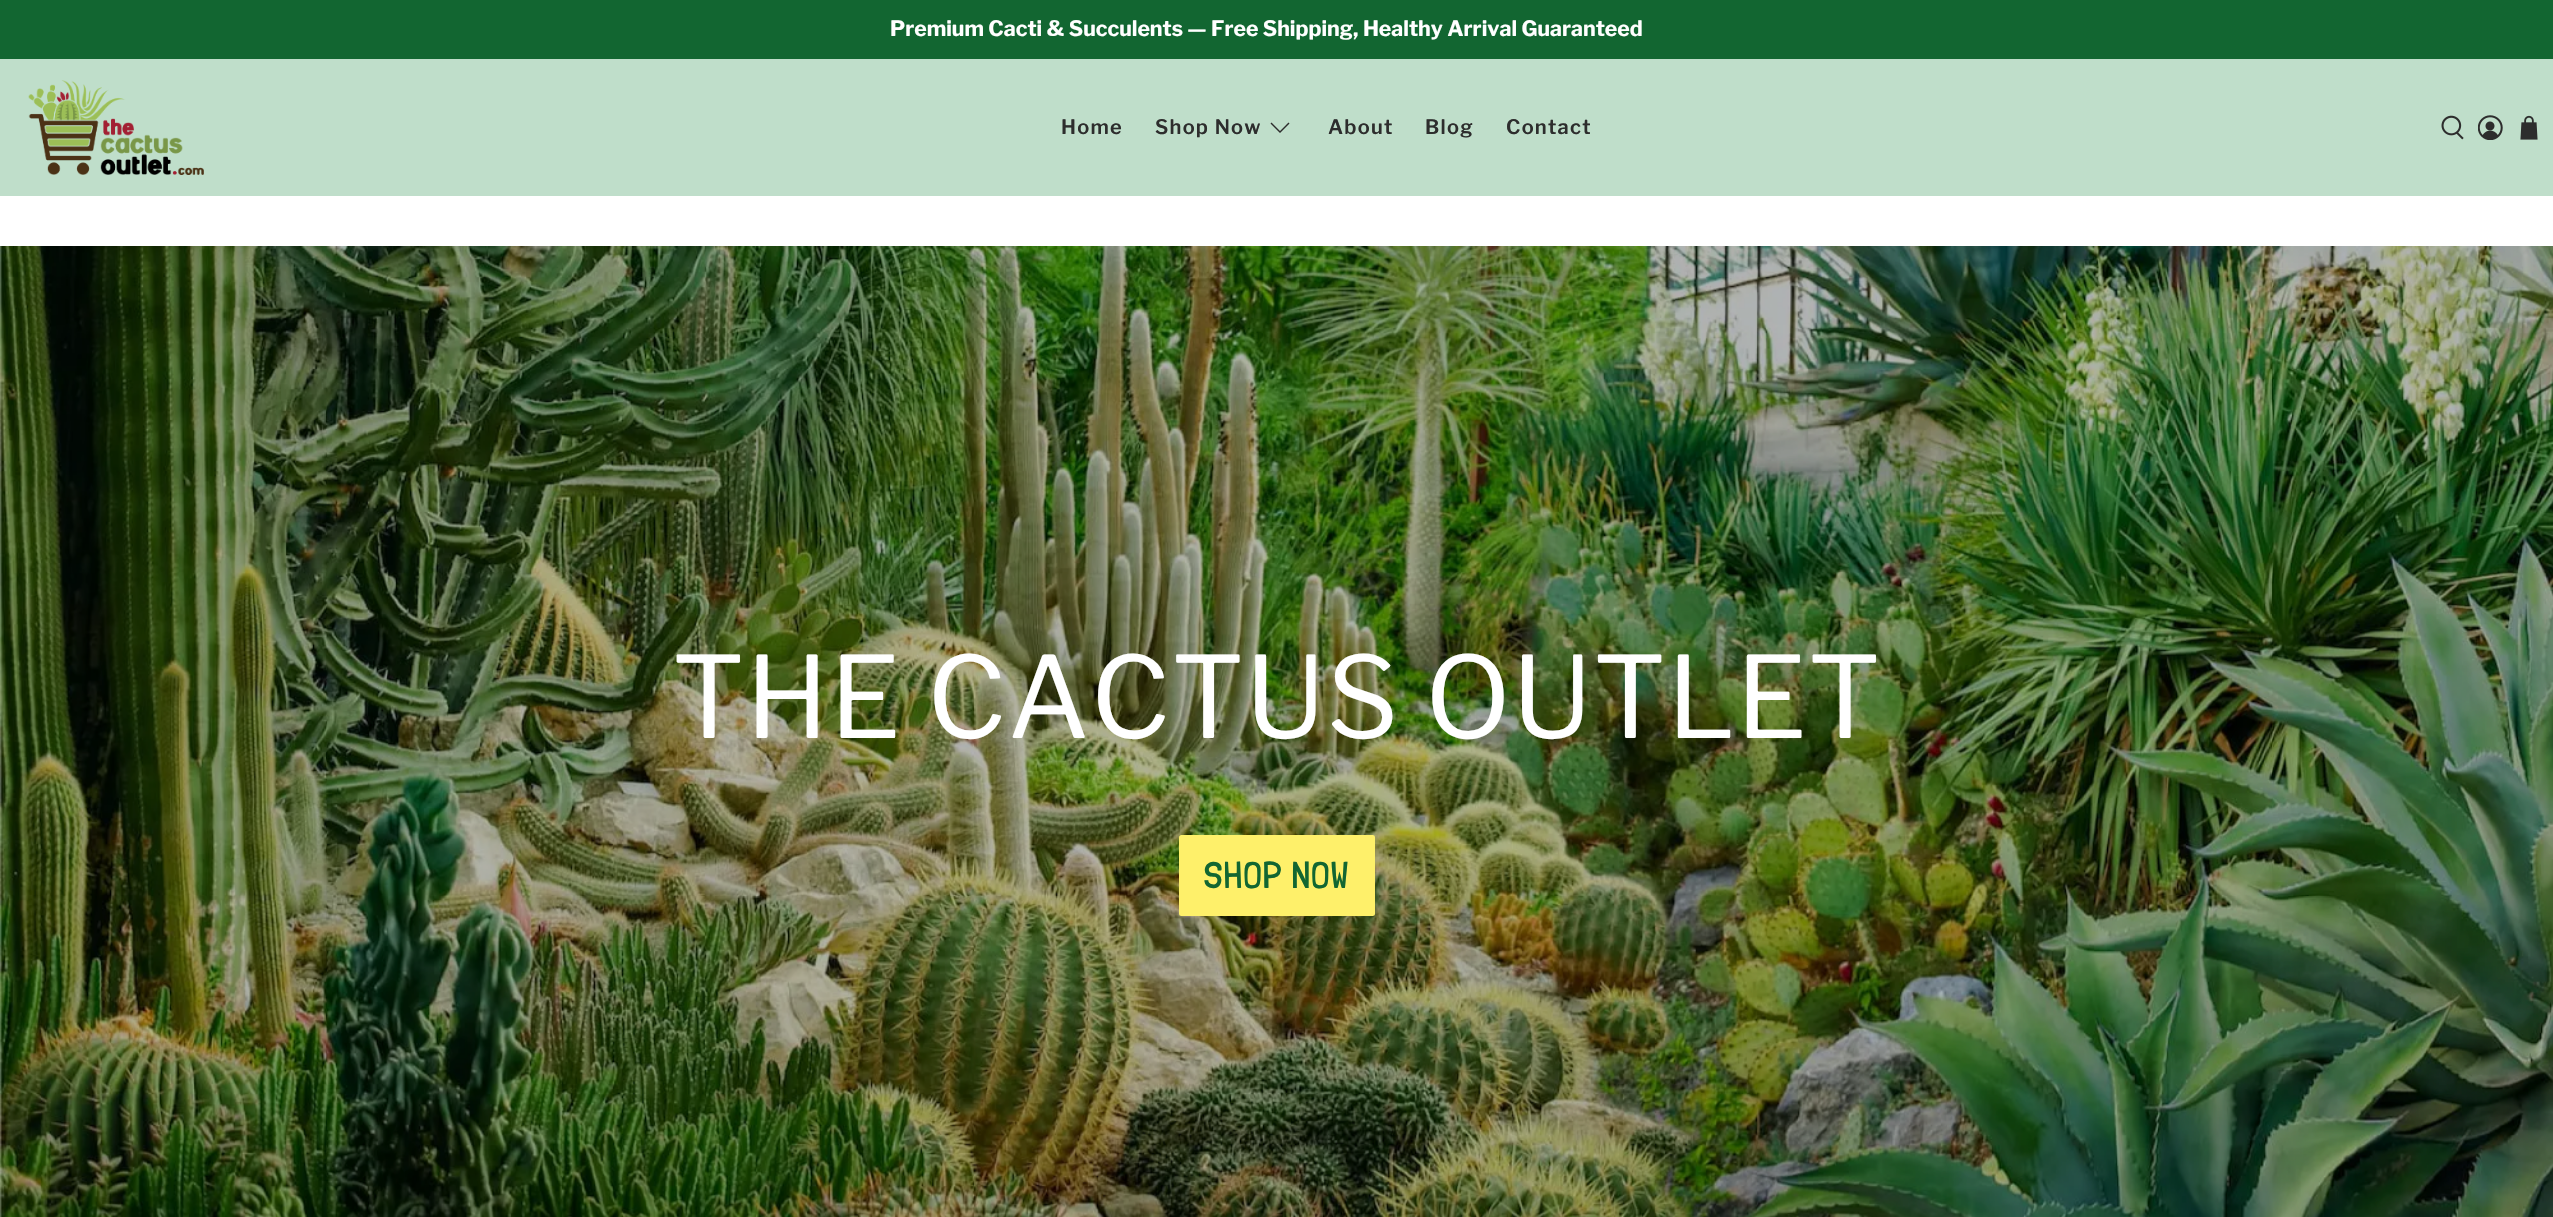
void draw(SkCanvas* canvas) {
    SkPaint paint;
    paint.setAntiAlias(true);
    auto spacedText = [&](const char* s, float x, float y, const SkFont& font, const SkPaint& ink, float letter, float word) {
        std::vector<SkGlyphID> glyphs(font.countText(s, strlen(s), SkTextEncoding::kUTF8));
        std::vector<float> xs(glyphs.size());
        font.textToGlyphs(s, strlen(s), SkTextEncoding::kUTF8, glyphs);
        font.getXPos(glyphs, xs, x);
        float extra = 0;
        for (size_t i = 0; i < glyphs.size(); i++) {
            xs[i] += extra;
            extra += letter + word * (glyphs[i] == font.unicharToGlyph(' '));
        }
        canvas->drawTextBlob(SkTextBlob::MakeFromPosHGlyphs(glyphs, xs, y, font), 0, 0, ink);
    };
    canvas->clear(0xFFFFFFFF);
    paint.setColor(0xFF126631);
    canvas->drawRect(SkRect::MakeXYWH(0, 0, 2553, 59), paint);
    SkFont font1(fontMgr->matchFamilyStyle("Libre Franklin", SkFontStyle::Bold()), 21.25f);
    font1.setSubpixel(true);
    paint.setColor(0xFFFFFFFF);
    canvas->drawString("Premium Cacti & Succulents — Free Shipping, Healthy Arrival Guaranteed", 890, 36, font1, paint);
    paint.setColor(0xFFBFDECA);
    canvas->drawRect(SkRect::MakeXYWH(0, 59, 2553, 137), paint);
    canvas->drawImageRect(SkImages::DeferredFromEncodedData(SkData::MakeFromFileName("img1.png")), SkRect::MakeXYWH(28, 80, 176, 95), SkSamplingOptions());
    SkFont font2(fontMgr->matchFamilyStyle("Libre Franklin", SkFontStyle(600, SkFontStyle::kNormal_Width, SkFontStyle::kUpright_Slant)), 20);
    font2.setSubpixel(true);
    paint.setColor(0xFF2D2D2D);
    spacedText("Home", 1061, 134, font2, paint, 1.25f, 0);
    spacedText("Shop Now", 1155, 134, font2, paint, 1.25f, 0);
    canvas->drawPath(SkPathBuilder().moveTo(1280, 133).lineTo(1270.5f, 123.5f).lineTo(1271.5f, 122.5f).lineTo(1280, 131).lineTo(1288.5f, 122.5f).lineTo(1289.5f, 123.5f).close().detach(), paint);
    spacedText("About", 1328, 134, font2, paint, 1.25f, 0);
    spacedText("Blog", 1425, 134, font2, paint, 1.25f, 0);
    spacedText("Contact", 1506, 134, font2, paint, 1.25f, 0);
    canvas->drawImageRect(SkImages::DeferredFromEncodedData(SkData::MakeFromFileName("img2.png")), SkRect::MakeXYWH(2441, 115, 23, 25), SkSamplingOptions());
    canvas->drawImageRect(SkImages::DeferredFromEncodedData(SkData::MakeFromFileName("img3.png")), SkRect::MakeXYWH(2478, 115, 25, 25), SkSamplingOptions());
    canvas->drawImageRect(SkImages::DeferredFromEncodedData(SkData::MakeFromFileName("img4.png")), SkRect::MakeXYWH(2520, 115, 18, 25), SkSamplingOptions());
    canvas->drawImageRect(SkImages::DeferredFromEncodedData(SkData::MakeFromFileName("img5.png")), SkRect::MakeXYWH(0, 246, 2553, 971), SkSamplingOptions());
    SkFont font3(fontMgr->matchFamilyStyle("Libre Franklin", SkFontStyle::Normal()), 112.5f);
    font3.setSubpixel(true);
    paint.setColor(0xFFFFFFFF);
    spacedText("THE CACTUS OUTLET", 672, 738, font3, paint, 1.25f, 0);
    paint.setColor(0xFFFEF06A);
    canvas->drawRoundRect(SkRect::MakeXYWH(1179, 835, 196, 81), 2.5f, 2.5f, paint);
    SkFont font4(fontMgr->matchFamilyStyle("Londrina Solid", SkFontStyle(300, SkFontStyle::kNormal_Width, SkFontStyle::kUpright_Slant)), 37.5f);
    font4.setSubpixel(true);
    paint.setColor(0xFF126631);
    spacedText("SHOP NOW", 1204, 888, font4, paint, 1.25f, 0);
}
